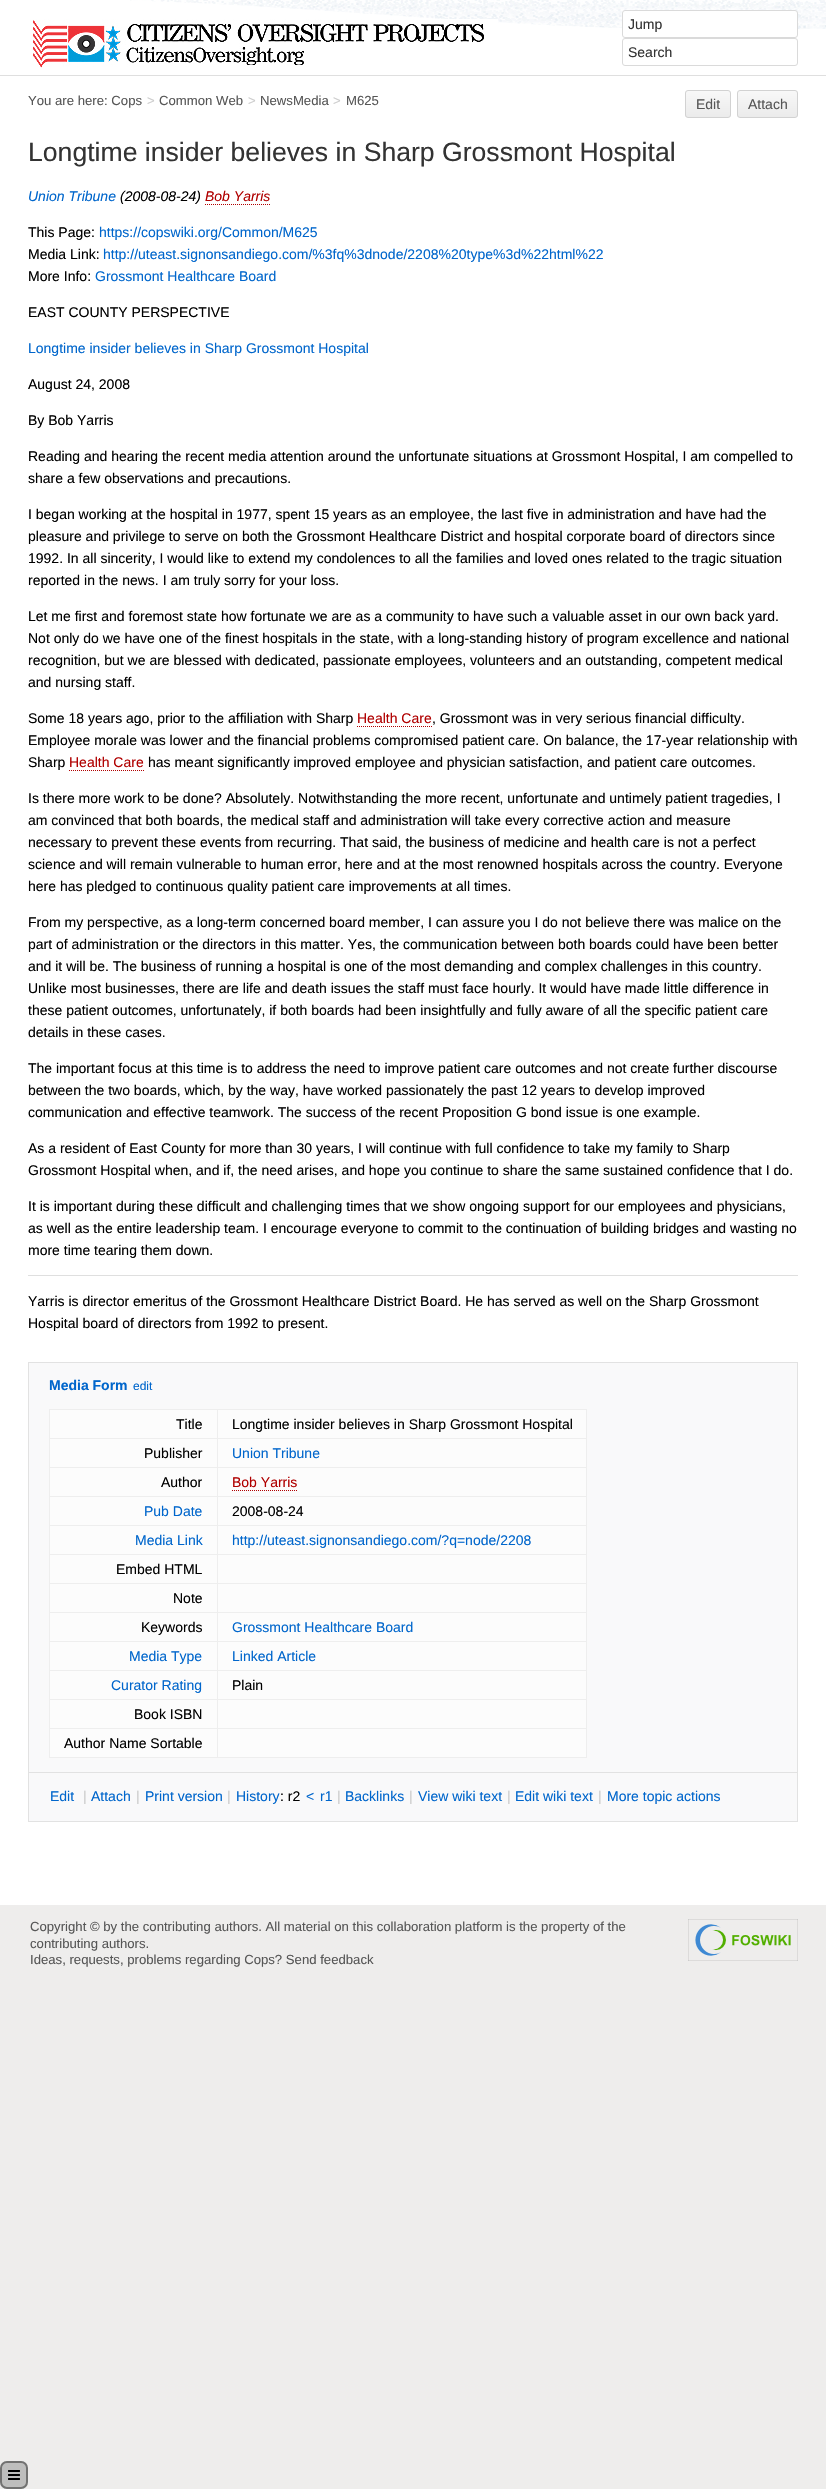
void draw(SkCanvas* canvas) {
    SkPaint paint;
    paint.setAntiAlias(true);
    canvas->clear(0xFFEEEDEC);
    paint.setColor(0xFFDFDFDF);
    canvas->drawRect(SkRect::MakeXYWH(0, 75, 826, 1), paint);
    paint.setColor(0xFFFFFFFF);
    canvas->drawRect(SkRect::MakeXYWH(0, 0, 826, 75), paint);
    canvas->drawImageRect(SkImages::DeferredFromEncodedData(SkData::MakeFromFileName("img1.png")), SkRect::MakeXYWH(130, 0, 696, 30), SkSamplingOptions());
    canvas->drawImageRect(SkImages::DeferredFromEncodedData(SkData::MakeFromFileName("img2.png")), SkRect::MakeXYWH(30, 19, 468, 49), SkSamplingOptions());
    canvas->drawRoundRect(SkRect::MakeXYWH(622.5f, 10.5f, 175, 27), 2.5f, 2.5f, paint);
    paint.setStyle(SkPaint::kStroke_Style);
    paint.setStrokeWidth(1);
    paint.setColor(0xFFDADADA);
    canvas->drawRoundRect(SkRect::MakeXYWH(622.5f, 10.5f, 175, 27), 2.5f, 2.5f, paint);
    SkFont font1(fontMgr->matchFamilyStyle("Liberation Sans", SkFontStyle::Normal()), 14);
    font1.setSubpixel(true);
    paint.setStyle(SkPaint::kFill_Style);
    paint.setColor(0xFF333333);
    canvas->drawString("Jump", 628, 29, font1, paint);
    paint.setStyle(SkPaint::kStroke_Style);
    paint.setColor(0xFFDADADA);
    canvas->drawRoundRect(SkRect::MakeXYWH(622.5f, 38.5f, 175, 27), 2.5f, 2.5f, paint);
    paint.setStyle(SkPaint::kFill_Style);
    paint.setColor(0xFF333333);
    canvas->drawString("Search", 628, 57, font1, paint);
    paint.setColor(0xFFFFFFFF);
    canvas->drawRect(SkRect::MakeXYWH(0, 76, 826, 1829), paint);
    SkFont font2(fontMgr->matchFamilyStyle("Liberation Sans", SkFontStyle::Normal()), 13.15f);
    font2.setSubpixel(true);
    paint.setColor(0xFF565656);
    canvas->drawString("You are here: Cops", 28, 105, font2, paint);
    paint.setColor(0xFFCCCCCC);
    canvas->drawString(">", 147, 105, font2, paint);
    paint.setColor(0xFF565656);
    canvas->drawString("Common Web", 159, 105, font2, paint);
    paint.setColor(0xFFCCCCCC);
    canvas->drawString(">", 248, 105, font2, paint);
    paint.setColor(0xFF565656);
    canvas->drawString("NewsMedia", 260, 105, font2, paint);
    paint.setColor(0xFFCCCCCC);
    canvas->drawString(">", 333, 105, font2, paint);
    paint.setColor(0xFF565656);
    canvas->drawString("M625", 346, 105, font2, paint);
    canvas->save();
    canvas->clipPath(SkPathBuilder().moveTo(688, 90).lineTo(728, 90).cubicTo(729.5f, 90, 731, 91.5f, 731, 93).lineTo(731, 115).cubicTo(731, 116.5f, 729.5f, 118, 728, 118).lineTo(688, 118).cubicTo(686.5f, 118, 685, 116.5f, 685, 115).lineTo(685, 93).cubicTo(685, 91.5f, 686.5f, 90, 688, 90).close().detach(), true);
    {
        const SkColor colors[] = {0xFFF8F8F8, 0xFFEBEBEB};
        const float stops[] = {0, 1};
        const SkPoint ends[] = {{708, 91}, {708, 117}};
        paint.setShader(SkGradientShader::MakeLinear(ends, colors, stops, 2, SkTileMode::kClamp));
        paint.setAlpha(255);
    }
    canvas->drawRect(SkRect::MakeXYWH(685, 91, 46, 26), paint);
    canvas->restore();
    paint.setStyle(SkPaint::kStroke_Style);
    paint.setShader(nullptr);
    paint.setColor(0xFFD2D2D2);
    canvas->drawRoundRect(SkRect::MakeXYWH(685.5f, 90.5f, 45, 27), 2.5f, 2.5f, paint);
    paint.setStyle(SkPaint::kFill_Style);
    paint.setColor(0xFF565656);
    canvas->drawString("Edit", 696, 109, font1, paint);
    canvas->save();
    canvas->clipPath(SkPathBuilder().moveTo(740, 90).lineTo(795, 90).cubicTo(796.5f, 90, 798, 91.5f, 798, 93).lineTo(798, 115).cubicTo(798, 116.5f, 796.5f, 118, 795, 118).lineTo(740, 118).cubicTo(738.5f, 118, 737, 116.5f, 737, 115).lineTo(737, 93).cubicTo(737, 91.5f, 738.5f, 90, 740, 90).close().detach(), true);
    {
        const SkColor colors[] = {0xFFF8F8F8, 0xFFEBEBEB};
        const float stops[] = {0, 1};
        const SkPoint ends[] = {{768, 91}, {768, 117}};
        paint.setShader(SkGradientShader::MakeLinear(ends, colors, stops, 2, SkTileMode::kClamp));
        paint.setAlpha(255);
    }
    canvas->drawRect(SkRect::MakeXYWH(737, 91, 61, 26), paint);
    canvas->restore();
    paint.setStyle(SkPaint::kStroke_Style);
    paint.setShader(nullptr);
    paint.setColor(0xFFD2D2D2);
    canvas->drawRoundRect(SkRect::MakeXYWH(737.5f, 90.5f, 60, 27), 2.5f, 2.5f, paint);
    paint.setStyle(SkPaint::kFill_Style);
    paint.setColor(0xFF565656);
    canvas->drawString("Attach", 748, 109, font1, paint);
    SkFont font3(fontMgr->matchFamilyStyle("Liberation Sans", SkFontStyle::Normal()), 26.6f);
    font3.setSubpixel(true);
    paint.setColor(0xFF333333);
    canvas->drawString("Longtime insider believes in Sharp Grossmont Hospital", 28, 161, font3, paint);
    SkFont font4(fontMgr->matchFamilyStyle("Liberation Sans", SkFontStyle::Italic()), 14);
    font4.setSubpixel(true);
    paint.setColor(0xFF0066CC);
    canvas->drawString("Union Tribune", 28, 201, font4, paint);
    paint.setColor(0xFF000000);
    canvas->drawString("(2008-08-24)", 120, 201, font4, paint);
    paint.setColor(0xFFB00000);
    canvas->drawString("Bob Yarris", 205, 201, font4, paint);
    paint.setStyle(SkPaint::kStroke_Style);
    paint.setPathEffect(SkDashPathEffect::Make({{1, 1}}, 0));
    canvas->drawPath(SkPathBuilder().moveTo(205, 204.5f).lineTo(270, 204.5f).detach(), paint);
    paint.setPathEffect(nullptr);
    paint.setStyle(SkPaint::kFill_Style);
    paint.setColor(0xFF000000);
    canvas->drawString("This Page:", 28, 237, font1, paint);
    paint.setColor(0xFF0066CC);
    canvas->drawString("https://copswiki.org/Common/M625", 99, 237, font1, paint);
    paint.setColor(0xFF000000);
    canvas->drawString("Media Link:", 28, 259, font1, paint);
    paint.setColor(0xFF0066CC);
    canvas->drawString("http://uteast.signonsandiego.com/%3fq%3dnode/2208%20type%3d%22html%22", 103, 259, font1, paint);
    paint.setColor(0xFF000000);
    canvas->drawString("More Info:", 28, 281, font1, paint);
    paint.setColor(0xFF0066CC);
    canvas->drawString("Grossmont Healthcare Board", 95, 281, font1, paint);
    paint.setColor(0xFF000000);
    canvas->drawString("EAST COUNTY PERSPECTIVE", 28, 317, font1, paint);
    paint.setColor(0xFF0066CC);
    canvas->drawString("Longtime insider believes in Sharp Grossmont Hospital", 28, 353, font1, paint);
    paint.setColor(0xFF000000);
    canvas->drawString("August 24, 2008", 28, 389, font1, paint);
    canvas->drawString("By Bob Yarris", 28, 425, font1, paint);
    canvas->drawString("Reading and hearing the recent media attention around the unfortunate situations at Grossmont Hospital, I am compelled to", 28, 461, font1, paint);
    canvas->drawString("share a few observations and precautions.", 28, 483, font1, paint);
    canvas->drawString("I began working at the hospital in 1977, spent 15 years as an employee, the last five in administration and have had the", 28, 519, font1, paint);
    canvas->drawString("pleasure and privilege to serve on both the Grossmont Healthcare District and hospital corporate board of directors since", 28, 541, font1, paint);
    canvas->drawString("1992. In all sincerity, I would like to extend my condolences to all the families and loved ones related to the tragic situation", 28, 563, font1, paint);
    canvas->drawString("reported in the news. I am truly sorry for your loss.", 28, 585, font1, paint);
    canvas->drawString("Let me first and foremost state how fortunate we are as a community to have such a valuable asset in our own back yard.", 28, 621, font1, paint);
    canvas->drawString("Not only do we have one of the finest hospitals in the state, with a long-standing history of program excellence and national", 28, 643, font1, paint);
    canvas->drawString("recognition, but we are blessed with dedicated, passionate employees, volunteers and an outstanding, competent medical", 28, 665, font1, paint);
    canvas->drawString("and nursing staff.", 28, 687, font1, paint);
    canvas->drawString("Some 18 years ago, prior to the affiliation with Sharp", 28, 723, font1, paint);
    paint.setColor(0xFFB00000);
    canvas->drawString("Health Care", 357, 723, font1, paint);
    paint.setStyle(SkPaint::kStroke_Style);
    paint.setPathEffect(SkDashPathEffect::Make({{1, 1}}, 0));
    canvas->drawPath(SkPathBuilder().moveTo(357, 726.5f).lineTo(432, 726.5f).detach(), paint);
    paint.setPathEffect(nullptr);
    paint.setStyle(SkPaint::kFill_Style);
    paint.setColor(0xFF000000);
    canvas->drawString(", Grossmont was in very serious financial difficulty.", 432, 723, font1, paint);
    canvas->drawString("Employee morale was lower and the financial problems compromised patient care. On balance, the 17-year relationship with", 28, 745, font1, paint);
    canvas->drawString("Sharp", 28, 767, font1, paint);
    paint.setColor(0xFFB00000);
    canvas->drawString("Health Care", 69, 767, font1, paint);
    paint.setStyle(SkPaint::kStroke_Style);
    paint.setPathEffect(SkDashPathEffect::Make({{1, 1}}, 0));
    canvas->drawPath(SkPathBuilder().moveTo(69, 770.5f).lineTo(144, 770.5f).detach(), paint);
    paint.setPathEffect(nullptr);
    paint.setStyle(SkPaint::kFill_Style);
    paint.setColor(0xFF000000);
    canvas->drawString("has meant significantly improved employee and physician satisfaction, and patient care outcomes.", 148, 767, font1, paint);
    canvas->drawString("Is there more work to be done? Absolutely. Notwithstanding the more recent, unfortunate and untimely patient tragedies, I", 28, 803, font1, paint);
    canvas->drawString("am convinced that both boards, the medical staff and administration will take every corrective action and measure", 28, 825, font1, paint);
    canvas->drawString("necessary to prevent these events from recurring. That said, the business of medicine and health care is not a perfect", 28, 847, font1, paint);
    canvas->drawString("science and will remain vulnerable to human error, here and at the most renowned hospitals across the country. Everyone", 28, 869, font1, paint);
    canvas->drawString("here has pledged to continuous quality patient care improvements at all times.", 28, 891, font1, paint);
    canvas->drawString("From my perspective, as a long-term concerned board member, I can assure you I do not believe there was malice on the", 28, 927, font1, paint);
    canvas->drawString("part of administration or the directors in this matter. Yes, the communication between both boards could have been better", 28, 949, font1, paint);
    canvas->drawString("and it will be. The business of running a hospital is one of the most demanding and complex challenges in this country.", 28, 971, font1, paint);
    canvas->drawString("Unlike most businesses, there are life and death issues the staff must face hourly. It would have made little difference in", 28, 993, font1, paint);
    canvas->drawString("these patient outcomes, unfortunately, if both boards had been insightfully and fully aware of all the specific patient care", 28, 1015, font1, paint);
    canvas->drawString("details in these cases.", 28, 1037, font1, paint);
    canvas->drawString("The important focus at this time is to address the need to improve patient care outcomes and not create further discourse", 28, 1073, font1, paint);
    canvas->drawString("between the two boards, which, by the way, have worked passionately the past 12 years to develop improved", 28, 1095, font1, paint);
    canvas->drawString("communication and effective teamwork. The success of the recent Proposition G bond issue is one example.", 28, 1117, font1, paint);
    canvas->drawString("As a resident of East County for more than 30 years, I will continue with full confidence to take my family to Sharp", 28, 1153, font1, paint);
    canvas->drawString("Grossmont Hospital when, and if, the need arises, and hope you continue to share the same sustained confidence that I do.", 28, 1175, font1, paint);
    canvas->drawString("It is important during these difficult and challenging times that we show ongoing support for our employees and physicians,", 28, 1211, font1, paint);
    canvas->drawString("as well as the entire leadership team. I encourage everyone to commit to the continuation of building bridges and wasting no", 28, 1233, font1, paint);
    canvas->drawString("more time tearing them down.", 28, 1255, font1, paint);
    paint.setColor(0xFFDFDFDF);
    canvas->drawRect(SkRect::MakeXYWH(28, 1275, 770, 1), paint);
    paint.setColor(0xFF000000);
    canvas->drawString("Yarris is director emeritus of the Grossmont Healthcare District Board. He has served as well on the Sharp Grossmont", 28, 1306, font1, paint);
    canvas->drawString("Hospital board of directors from 1992 to present.", 28, 1328, font1, paint);
    paint.setColor(0xFFF9F9FA);
    canvas->drawRect(SkRect::MakeXYWH(28.5f, 1362.5f, 769, 459), paint);
    paint.setStyle(SkPaint::kStroke_Style);
    paint.setColor(0xFFE2E2E2);
    canvas->drawRect(SkRect::MakeXYWH(28.5f, 1362.5f, 769, 459), paint);
    SkFont font5(fontMgr->matchFamilyStyle("Liberation Sans", SkFontStyle::Bold()), 14);
    font5.setSubpixel(true);
    paint.setStyle(SkPaint::kFill_Style);
    paint.setColor(0xFF0066CC);
    canvas->drawString("Media Form", 49, 1390, font5, paint);
    SkFont font6(fontMgr->matchFamilyStyle("Liberation Sans", SkFontStyle::Normal()), 12);
    font6.setSubpixel(true);
    canvas->drawString("edit", 133, 1390, font6, paint);
    paint.setColor(0xFFFCFCFC);
    canvas->drawRect(SkRect::MakeXYWH(50, 1410, 536, 347), paint);
    paint.setColor(0xFFEEEEEE);
    canvas->drawRect(SkRect::MakeXYWH(49, 1409, 538, 1), paint);
    canvas->drawRect(SkRect::MakeXYWH(586, 1409, 1, 349), paint);
    canvas->drawRect(SkRect::MakeXYWH(49, 1757, 538, 1), paint);
    canvas->drawRect(SkRect::MakeXYWH(49, 1409, 1, 349), paint);
    paint.setColor(0xFF000000);
    canvas->drawString("Title", 176, 1429, font1, paint);
    paint.setColor(0xFFEEEEEE);
    canvas->drawRect(SkRect::MakeXYWH(217, 1438, 370, 1), paint);
    canvas->drawRect(SkRect::MakeXYWH(217, 1467, 370, 1), paint);
    canvas->drawRect(SkRect::MakeXYWH(217, 1496, 370, 1), paint);
    canvas->drawRect(SkRect::MakeXYWH(217, 1525, 370, 1), paint);
    canvas->drawRect(SkRect::MakeXYWH(217, 1554, 370, 1), paint);
    canvas->drawRect(SkRect::MakeXYWH(217, 1583, 370, 1), paint);
    canvas->drawRect(SkRect::MakeXYWH(217, 1612, 370, 1), paint);
    canvas->drawRect(SkRect::MakeXYWH(217, 1641, 370, 1), paint);
    canvas->drawRect(SkRect::MakeXYWH(217, 1670, 370, 1), paint);
    canvas->drawRect(SkRect::MakeXYWH(217, 1699, 370, 1), paint);
    canvas->drawRect(SkRect::MakeXYWH(217, 1728, 370, 1), paint);
    canvas->drawRect(SkRect::MakeXYWH(217, 1728, 1, 30), paint);
    canvas->drawRect(SkRect::MakeXYWH(49, 1728, 169, 1), paint);
    canvas->drawRect(SkRect::MakeXYWH(217, 1699, 1, 30), paint);
    canvas->drawRect(SkRect::MakeXYWH(49, 1699, 169, 1), paint);
    canvas->drawRect(SkRect::MakeXYWH(217, 1670, 1, 30), paint);
    canvas->drawRect(SkRect::MakeXYWH(49, 1670, 169, 1), paint);
    canvas->drawRect(SkRect::MakeXYWH(217, 1641, 1, 30), paint);
    canvas->drawRect(SkRect::MakeXYWH(49, 1641, 169, 1), paint);
    canvas->drawRect(SkRect::MakeXYWH(217, 1612, 1, 30), paint);
    canvas->drawRect(SkRect::MakeXYWH(49, 1612, 169, 1), paint);
    canvas->drawRect(SkRect::MakeXYWH(217, 1583, 1, 30), paint);
    canvas->drawRect(SkRect::MakeXYWH(49, 1583, 169, 1), paint);
    canvas->drawRect(SkRect::MakeXYWH(217, 1554, 1, 30), paint);
    canvas->drawRect(SkRect::MakeXYWH(49, 1554, 169, 1), paint);
    canvas->drawRect(SkRect::MakeXYWH(217, 1525, 1, 30), paint);
    canvas->drawRect(SkRect::MakeXYWH(49, 1525, 169, 1), paint);
    canvas->drawRect(SkRect::MakeXYWH(217, 1496, 1, 30), paint);
    canvas->drawRect(SkRect::MakeXYWH(49, 1496, 169, 1), paint);
    canvas->drawRect(SkRect::MakeXYWH(217, 1467, 1, 30), paint);
    canvas->drawRect(SkRect::MakeXYWH(49, 1467, 169, 1), paint);
    canvas->drawRect(SkRect::MakeXYWH(217, 1438, 1, 30), paint);
    canvas->drawRect(SkRect::MakeXYWH(49, 1438, 169, 1), paint);
    canvas->drawRect(SkRect::MakeXYWH(217, 1409, 1, 30), paint);
    paint.setColor(0xFF000000);
    canvas->drawString("Longtime insider believes in Sharp Grossmont Hospital", 232, 1429, font1, paint);
    canvas->drawString("Publisher", 144, 1458, font1, paint);
    paint.setColor(0xFF0066CC);
    canvas->drawString("Union Tribune", 232, 1458, font1, paint);
    paint.setColor(0xFF000000);
    canvas->drawString("Author", 161, 1487, font1, paint);
    paint.setColor(0xFFB00000);
    canvas->drawString("Bob Yarris", 232, 1487, font1, paint);
    paint.setStyle(SkPaint::kStroke_Style);
    paint.setPathEffect(SkDashPathEffect::Make({{1, 1}}, 0));
    canvas->drawPath(SkPathBuilder().moveTo(232, 1490.5f).lineTo(297, 1490.5f).detach(), paint);
    paint.setPathEffect(nullptr);
    paint.setStyle(SkPaint::kFill_Style);
    paint.setColor(0xFF0066CC);
    canvas->drawString("Pub Date", 144, 1516, font1, paint);
    paint.setColor(0xFF000000);
    canvas->drawString("2008-08-24", 232, 1516, font1, paint);
    paint.setColor(0xFF0066CC);
    canvas->drawString("Media Link", 135, 1545, font1, paint);
    canvas->drawString("http://uteast.signonsandiego.com/?q=node/2208", 232, 1545, font1, paint);
    paint.setColor(0xFF000000);
    canvas->drawString("Embed HTML", 116, 1574, font1, paint);
    canvas->drawString("Note", 173, 1603, font1, paint);
    canvas->drawString("Keywords", 141, 1632, font1, paint);
    paint.setColor(0xFF0066CC);
    canvas->drawString("Grossmont Healthcare Board", 232, 1632, font1, paint);
    canvas->drawString("Media Type", 129, 1661, font1, paint);
    canvas->drawString("Linked Article", 232, 1661, font1, paint);
    canvas->drawString("Curator Rating", 111, 1690, font1, paint);
    paint.setColor(0xFF000000);
    canvas->drawString("Plain", 232, 1690, font1, paint);
    canvas->drawString("Book ISBN", 134, 1719, font1, paint);
    canvas->drawString("Author Name Sortable", 64, 1748, font1, paint);
    paint.setColor(0xFFE2E2E2);
    canvas->drawRect(SkRect::MakeXYWH(29, 1772, 768, 1), paint);
    paint.setColor(0xFF0066CC);
    canvas->drawString("Edit", 50, 1801, font1, paint);
    paint.setColor(0xFFCCCCCC);
    canvas->drawString("|", 83, 1801, font1, paint);
    paint.setColor(0xFF0066CC);
    canvas->drawString("Attach", 91, 1801, font1, paint);
    paint.setColor(0xFFCCCCCC);
    canvas->drawString("|", 136, 1801, font1, paint);
    paint.setColor(0xFF0066CC);
    canvas->drawString("Print version", 145, 1801, font1, paint);
    paint.setColor(0xFFCCCCCC);
    canvas->drawString("|", 227, 1801, font1, paint);
    paint.setColor(0xFF0066CC);
    canvas->drawString("History", 236, 1801, font1, paint);
    paint.setColor(0xFF000000);
    canvas->drawString(": r2", 280, 1801, font1, paint);
    paint.setColor(0xFF0066CC);
    canvas->drawString("<", 306, 1801, font1, paint);
    canvas->drawString("r1", 320, 1801, font1, paint);
    paint.setColor(0xFFCCCCCC);
    canvas->drawString("|", 337, 1801, font1, paint);
    paint.setColor(0xFF0066CC);
    canvas->drawString("Backlinks", 345, 1801, font1, paint);
    paint.setColor(0xFFCCCCCC);
    canvas->drawString("|", 409, 1801, font1, paint);
    paint.setColor(0xFF0066CC);
    canvas->drawString("View wiki text", 418, 1801, font1, paint);
    paint.setColor(0xFFCCCCCC);
    canvas->drawString("|", 507, 1801, font1, paint);
    paint.setColor(0xFF0066CC);
    canvas->drawString("Edit wiki text", 515, 1801, font1, paint);
    paint.setColor(0xFFCCCCCC);
    canvas->drawString("|", 598, 1801, font1, paint);
    paint.setColor(0xFF0066CC);
    canvas->drawString("More topic actions", 607, 1801, font1, paint);
    paint.setColor(0xFFBEBEBD);
    canvas->drawRoundRect(SkRect::MakeXYWH(0, 2461, 28, 28), 7, 7, paint);
    paint.setStyle(SkPaint::kStroke_Style);
    paint.setStrokeWidth(2);
    paint.setColor(0x66000000);
    canvas->drawRoundRect(SkRect::MakeXYWH(1, 2462, 26, 26), 6, 6, paint);
    canvas->drawImageRect(SkImages::DeferredFromEncodedData(SkData::MakeFromFileName("img3.png")), SkRect::MakeXYWH(8, 2470, 12, 10), SkSamplingOptions());
    paint.setStyle(SkPaint::kFill_Style);
    paint.setColor(0xFF565656);
    canvas->drawString("Copyright © by the contributing authors. All material on this collaboration platform is the property of the", 30, 1931, font2, paint);
    canvas->drawImageRect(SkImages::DeferredFromEncodedData(SkData::MakeFromFileName("img4.png")), SkRect::MakeXYWH(688, 1919, 110, 42), SkSamplingOptions());
    canvas->drawString("contributing authors.", 30, 1948, font2, paint);
    canvas->drawString("Ideas, requests, problems regarding Cops? Send feedback", 30, 1964, font2, paint);
}
